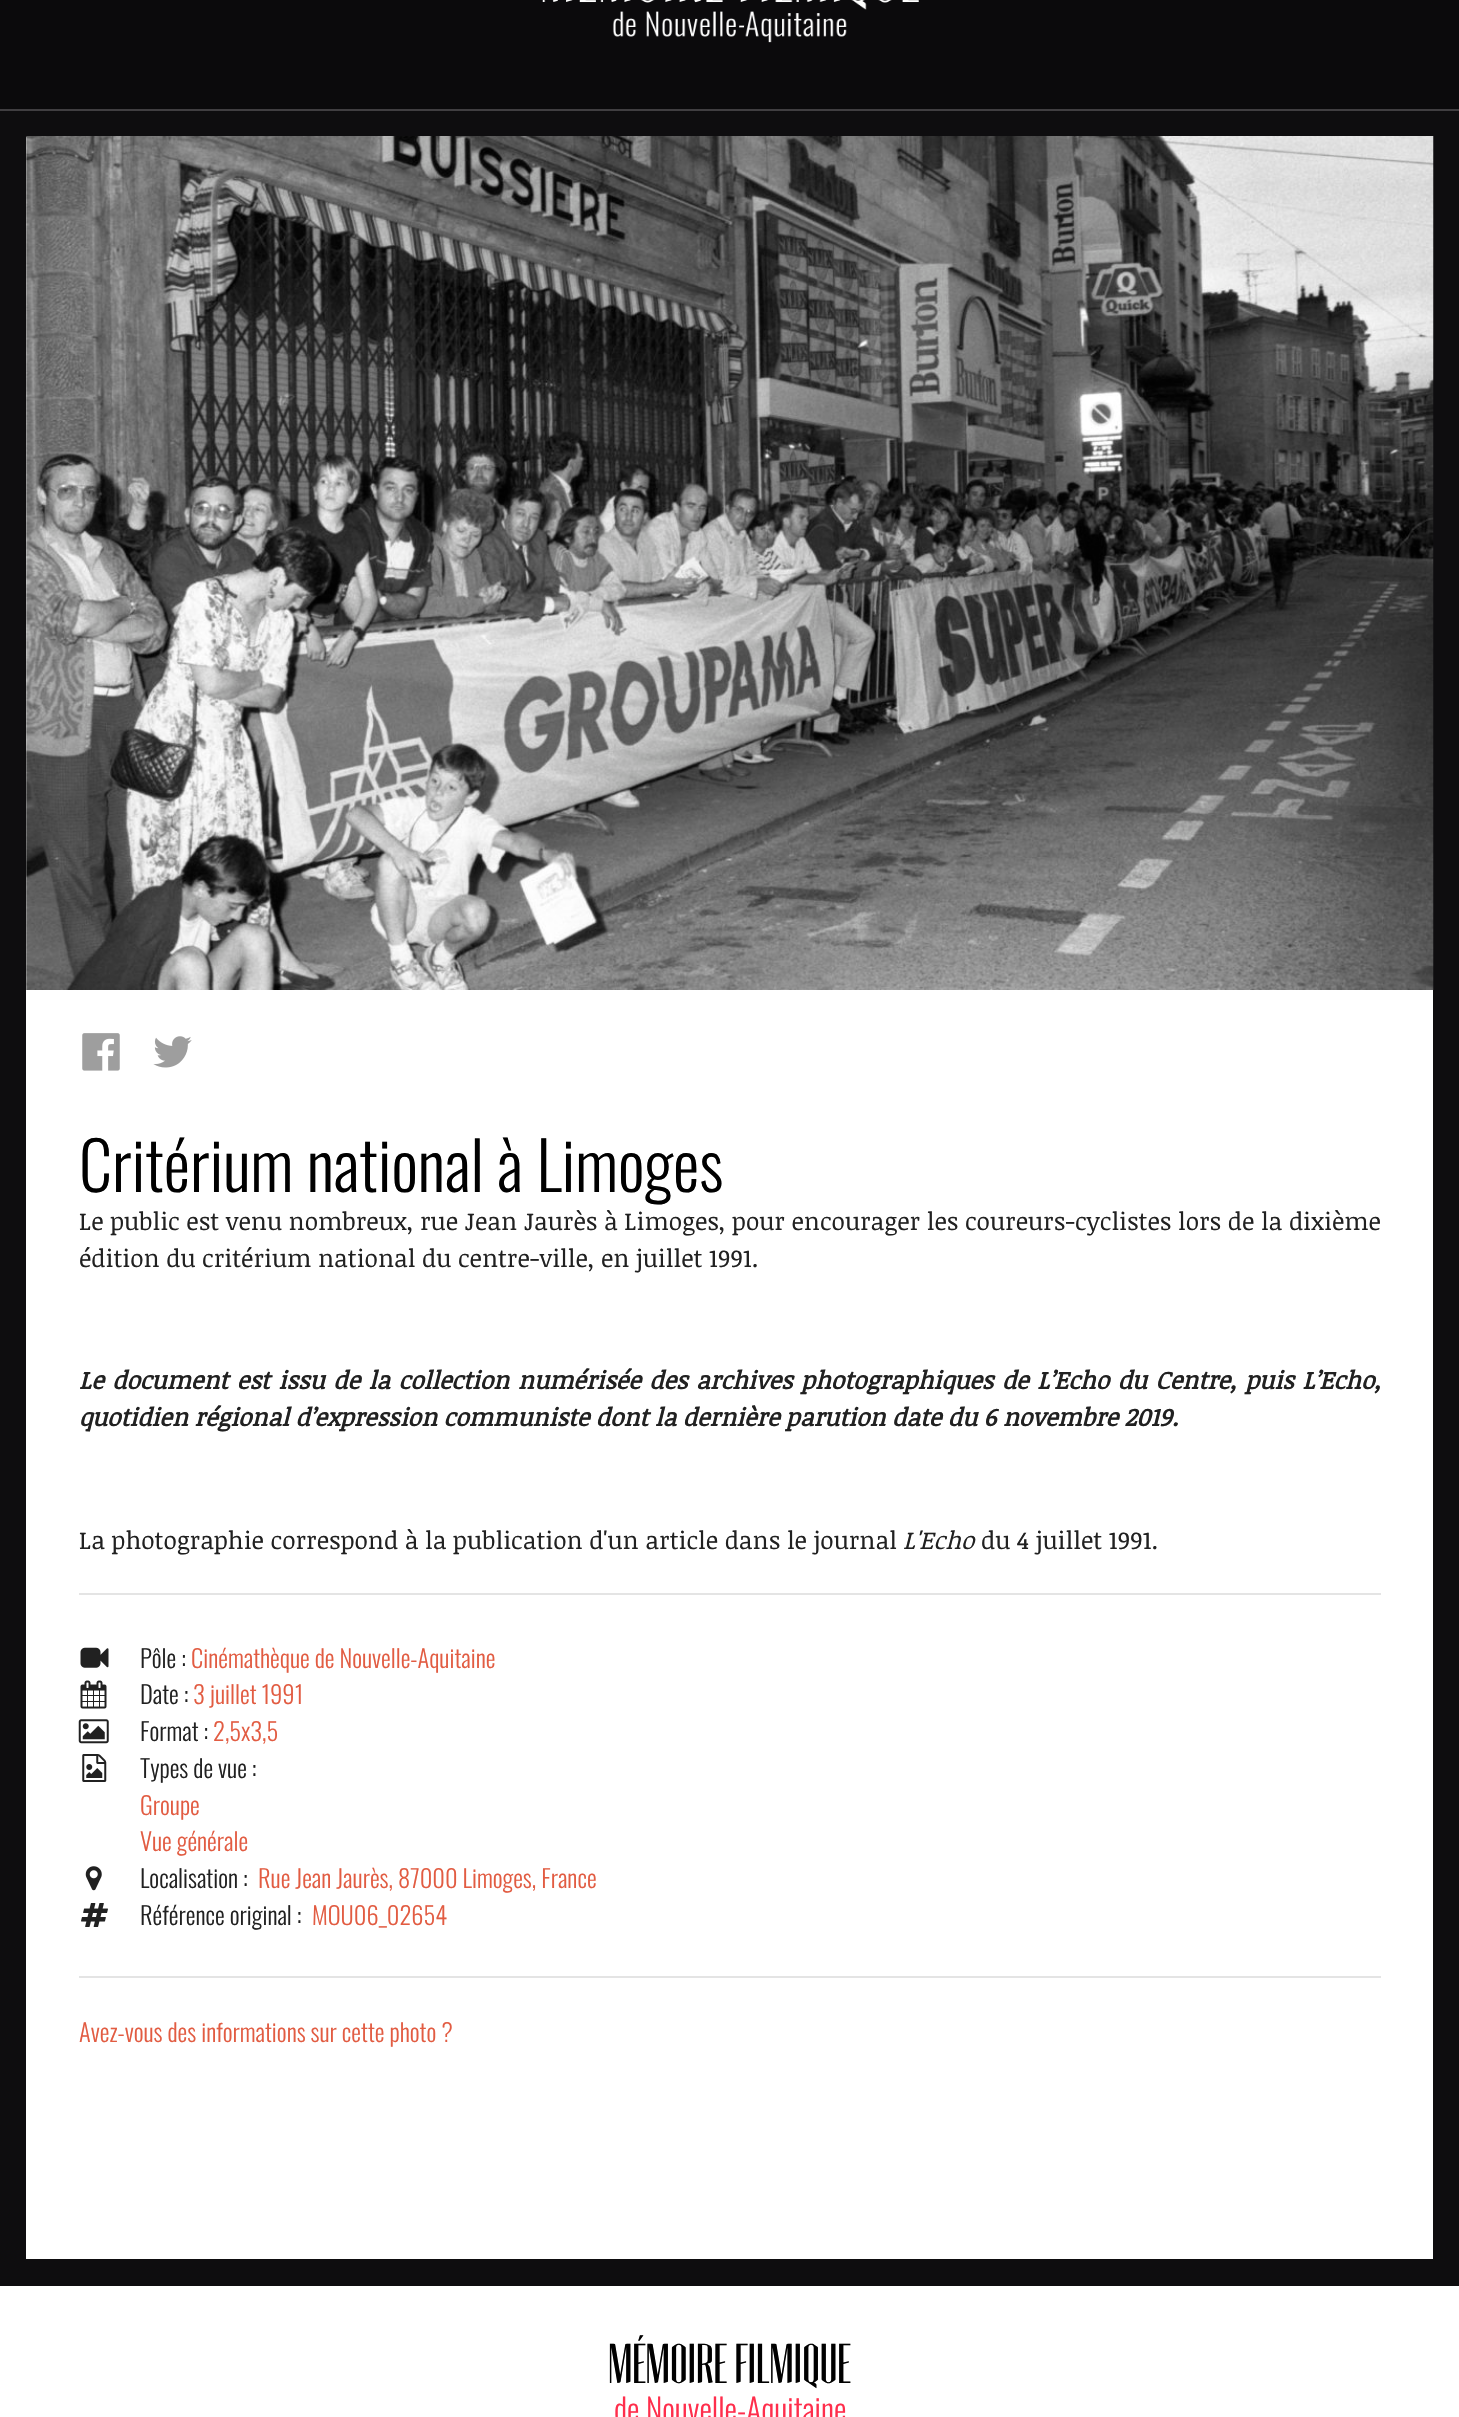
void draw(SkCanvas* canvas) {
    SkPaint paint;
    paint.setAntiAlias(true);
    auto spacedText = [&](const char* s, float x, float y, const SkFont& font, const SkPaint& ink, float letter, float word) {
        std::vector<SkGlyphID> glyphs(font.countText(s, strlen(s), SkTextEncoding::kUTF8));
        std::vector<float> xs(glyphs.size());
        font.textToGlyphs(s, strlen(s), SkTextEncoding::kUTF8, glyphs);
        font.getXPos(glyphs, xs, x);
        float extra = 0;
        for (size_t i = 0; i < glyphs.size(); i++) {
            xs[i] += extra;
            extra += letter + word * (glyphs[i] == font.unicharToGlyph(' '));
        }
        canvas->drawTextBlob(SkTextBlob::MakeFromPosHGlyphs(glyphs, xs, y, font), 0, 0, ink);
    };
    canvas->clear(0xFF0E0D0F);
    paint.setColor(0xFF0B0A0C);
    canvas->drawRect(SkRect::MakeXYWH(0, 0, 1459, 109), paint);
    paint.setColor(0xFF403E41);
    canvas->drawRect(SkRect::MakeXYWH(0, 109, 1459, 2), paint);
    canvas->drawImageRect(SkImages::DeferredFromEncodedData(SkData::MakeFromFileName("img1.png")), SkRect::MakeXYWH(542, 0, 377, 43), SkSamplingOptions());
    paint.setColor(0xFFFFFFFF);
    canvas->drawRect(SkRect::MakeXYWH(26, 137, 1407, 2122), paint);
    canvas->drawImageRect(SkImages::DeferredFromEncodedData(SkData::MakeFromFileName("img2.png")), SkRect::MakeXYWH(26, 136, 1408, 854), SkSamplingOptions());
    canvas->drawImageRect(SkImages::DeferredFromEncodedData(SkData::MakeFromFileName("img3.png")), SkRect::MakeXYWH(82, 1033, 38, 38), SkSamplingOptions());
    canvas->drawImageRect(SkImages::DeferredFromEncodedData(SkData::MakeFromFileName("img4.png")), SkRect::MakeXYWH(153, 1036, 39, 32), SkSamplingOptions());
    SkFont font1(fontMgr->matchFamilyStyle("Oswald", SkFontStyle(300, SkFontStyle::kNormal_Width, SkFontStyle::kUpright_Slant)), 66.25f);
    font1.setSubpixel(true);
    paint.setColor(0xFF000000);
    canvas->drawString("Critérium national à Limoges", 79, 1192, font1, paint);
    SkFont font2(fontMgr->matchFamilyStyle("Noticia Text", SkFontStyle::Normal()), 24.5f);
    font2.setSubpixel(true);
    paint.setColor(0xFF212121);
    canvas->drawString("Le public est venu nombreux, rue Jean Jaurès à Limoges, pour encourager les coureurs-cyclistes lors de la dixième", 79, 1230, font2, paint);
    canvas->drawString("édition du critérium national du centre-ville, en juillet 1991.", 79, 1267, font2, paint);
    SkFont font3(fontMgr->matchFamilyStyle("Noticia Text", SkFontStyle::BoldItalic()), 24.5f);
    font3.setSubpixel(true);
    spacedText("Le document est issu de la collection numérisée des archives photographiques de L’Echo du Centre, puis L’Echo,", 79, 1389, font3, paint, 0, 2.1f);
    canvas->drawString("quotidien régional d’expression communiste dont la dernière parution date du 6 novembre 2019.", 79, 1426, font3, paint);
    canvas->drawString("La photographie correspond à la publication d'un article dans le journal", 79, 1549, font2, paint);
    SkFont font4(fontMgr->matchFamilyStyle("Noticia Text", SkFontStyle::Italic()), 24.5f);
    font4.setSubpixel(true);
    canvas->drawString("L'Echo", 903, 1549, font4, paint);
    canvas->drawString("du 4 juillet 1991.", 981, 1549, font2, paint);
    paint.setColor(0xFFE4E4E4);
    canvas->drawRect(SkRect::MakeXYWH(79, 1593, 1302, 2), paint);
    canvas->drawRect(SkRect::MakeXYWH(79, 1976, 1302, 2), paint);
    canvas->drawImageRect(SkImages::DeferredFromEncodedData(SkData::MakeFromFileName("img5.png")), SkRect::MakeXYWH(80, 1647, 29, 21), SkSamplingOptions());
    SkFont font5(fontMgr->matchFamilyStyle("Oswald", SkFontStyle(300, SkFontStyle::kNormal_Width, SkFontStyle::kUpright_Slant)), 24.5f);
    font5.setSubpixel(true);
    paint.setColor(0xFF212121);
    canvas->drawString("Pôle :", 140, 1668, font5, paint);
    paint.setColor(0xFFE25C42);
    canvas->drawString("Cinémathèque de Nouvelle-Aquitaine", 191, 1668, font5, paint);
    canvas->drawImageRect(SkImages::DeferredFromEncodedData(SkData::MakeFromFileName("img6.png")), SkRect::MakeXYWH(80, 1680, 27, 29), SkSamplingOptions());
    paint.setColor(0xFF212121);
    canvas->drawString("Date :", 140, 1704, font5, paint);
    paint.setColor(0xFFE25C42);
    canvas->drawString("3 juillet 1991", 193, 1704, font5, paint);
    canvas->drawImageRect(SkImages::DeferredFromEncodedData(SkData::MakeFromFileName("img7.png")), SkRect::MakeXYWH(78, 1719, 31, 25), SkSamplingOptions());
    paint.setColor(0xFF212121);
    canvas->drawString("Format :", 140, 1741, font5, paint);
    paint.setColor(0xFFE25C42);
    canvas->drawString("2,5x3,5", 213, 1741, font5, paint);
    canvas->drawImageRect(SkImages::DeferredFromEncodedData(SkData::MakeFromFileName("img8.png")), SkRect::MakeXYWH(82, 1754, 25, 28), SkSamplingOptions());
    paint.setColor(0xFF212121);
    canvas->drawString("Types de vue :", 140, 1778, font5, paint);
    paint.setColor(0xFFE25C42);
    canvas->drawString("Groupe", 140, 1815, font5, paint);
    canvas->drawString("Vue générale", 140, 1851, font5, paint);
    canvas->drawImageRect(SkImages::DeferredFromEncodedData(SkData::MakeFromFileName("img9.png")), SkRect::MakeXYWH(85, 1866, 17, 25), SkSamplingOptions());
    paint.setColor(0xFF212121);
    canvas->drawString("Localisation :", 140, 1888, font5, paint);
    paint.setColor(0xFFE25C42);
    canvas->drawString("Rue Jean Jaurès, 87000 Limoges, France", 258, 1888, font5, paint);
    canvas->drawImageRect(SkImages::DeferredFromEncodedData(SkData::MakeFromFileName("img10.png")), SkRect::MakeXYWH(81, 1903, 27, 24), SkSamplingOptions());
    paint.setColor(0xFF212121);
    canvas->drawString("Référence original :", 140, 1925, font5, paint);
    paint.setColor(0xFFE25C42);
    canvas->drawString("MOU06_02654", 312, 1925, font5, paint);
    canvas->drawString("Avez-vous des informations sur cette photo ?", 79, 2042, font5, paint);
    paint.setColor(0xFFFFFFFF);
    canvas->drawRect(SkRect::MakeXYWH(0, 2286, 1459, 131), paint);
    SkFont font6(fontMgr->matchFamilyStyle("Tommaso", SkFontStyle::Normal()), 56);
    font6.setSubpixel(true);
    paint.setColor(0xFF000000);
    canvas->drawString("MÉMOIRE FILMIQUE", 608, 2383, font6, paint);
    SkFont font7(fontMgr->matchFamilyStyle("Oswald", SkFontStyle(300, SkFontStyle::kNormal_Width, SkFontStyle::kUpright_Slant)), 31.5f);
    font7.setSubpixel(true);
    paint.setColor(0xFFFF2E4C);
    canvas->drawString("de Nouvelle-Aquitaine", 614, 2422, font7, paint);
}
